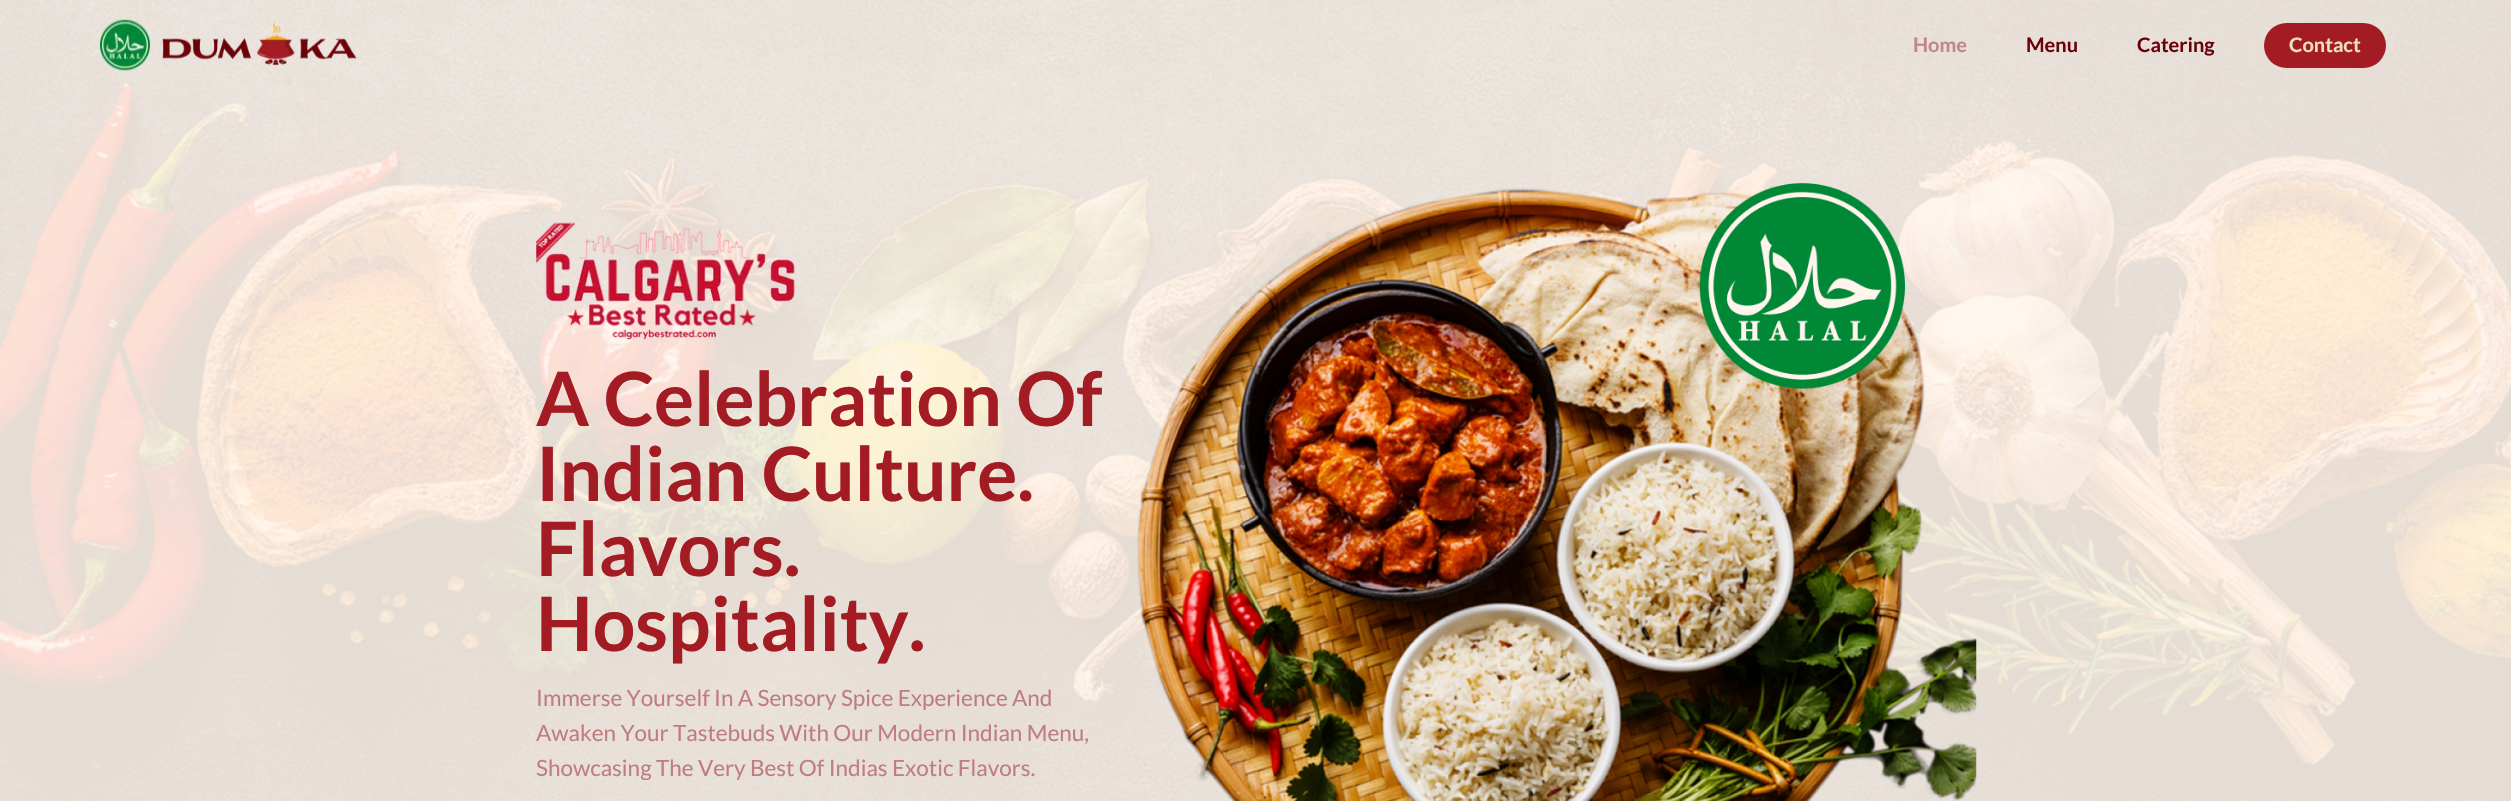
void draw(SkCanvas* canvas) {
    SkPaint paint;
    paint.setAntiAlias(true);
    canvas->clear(0xFFFFF5EC);
    canvas->drawImageRect(SkImages::DeferredFromEncodedData(SkData::MakeFromFileName("img3.png")), SkRect::MakeXYWH(0, 0, 2511, 801), SkSamplingOptions());
    canvas->drawImageRect(SkImages::DeferredFromEncodedData(SkData::MakeFromFileName("img1.png")), SkRect::MakeXYWH(100, 19, 50, 52), SkSamplingOptions());
    canvas->drawImageRect(SkImages::DeferredFromEncodedData(SkData::MakeFromFileName("img2.png")), SkRect::MakeXYWH(162, 21, 195, 45), SkSamplingOptions());
    SkFont font1(fontMgr->matchFamilyStyle("Lato", SkFontStyle::Bold()), 20);
    font1.setSubpixel(true);
    paint.setColor(0xFFC0878A);
    canvas->drawString("Home", 1913, 52, font1, paint);
    paint.setColor(0xFF6B010A);
    canvas->drawString("Menu", 2026, 52, font1, paint);
    canvas->drawString("Catering", 2137, 52, font1, paint);
    paint.setColor(0xFFA41C23);
    canvas->drawRoundRect(SkRect::MakeXYWH(2264, 23, 122, 45), 22.5f, 22.5f, paint);
    paint.setColor(0xFFEDDFC3);
    canvas->drawString("Contact", 2289, 52, font1, paint);
    canvas->drawImageRect(SkImages::DeferredFromEncodedData(SkData::MakeFromFileName("img4.png")), SkRect::MakeXYWH(536, 222, 259, 118), SkSamplingOptions());
    SkFont font2(fontMgr->matchFamilyStyle("Lato", SkFontStyle::Bold()), 75);
    font2.setSubpixel(true);
    paint.setColor(0xFFA41C23);
    canvas->drawString("A Celebration Of", 536, 426, font2, paint);
    canvas->drawString("Indian Culture.", 536, 501, font2, paint);
    canvas->drawString("Flavors.", 536, 576, font2, paint);
    canvas->drawString("Hospitality.", 536, 651, font2, paint);
    SkFont font3(fontMgr->matchFamilyStyle("Lato", SkFontStyle::Normal()), 22.5f);
    font3.setSubpixel(true);
    paint.setColor(0xFFBF7D81);
    canvas->drawString("Immerse Yourself In A Sensory Spice Experience And", 536, 706, font3, paint);
    canvas->drawString("Awaken Your Tastebuds With Our Modern Indian Menu,", 536, 741, font3, paint);
    canvas->drawString("Showcasing The Very Best Of Indias Exotic Flavors.", 536, 776, font3, paint);
    canvas->drawImageRect(SkImages::DeferredFromEncodedData(SkData::MakeFromFileName("img5.png")), SkRect::MakeXYWH(1137, 183, 840, 618), SkSamplingOptions());
}
